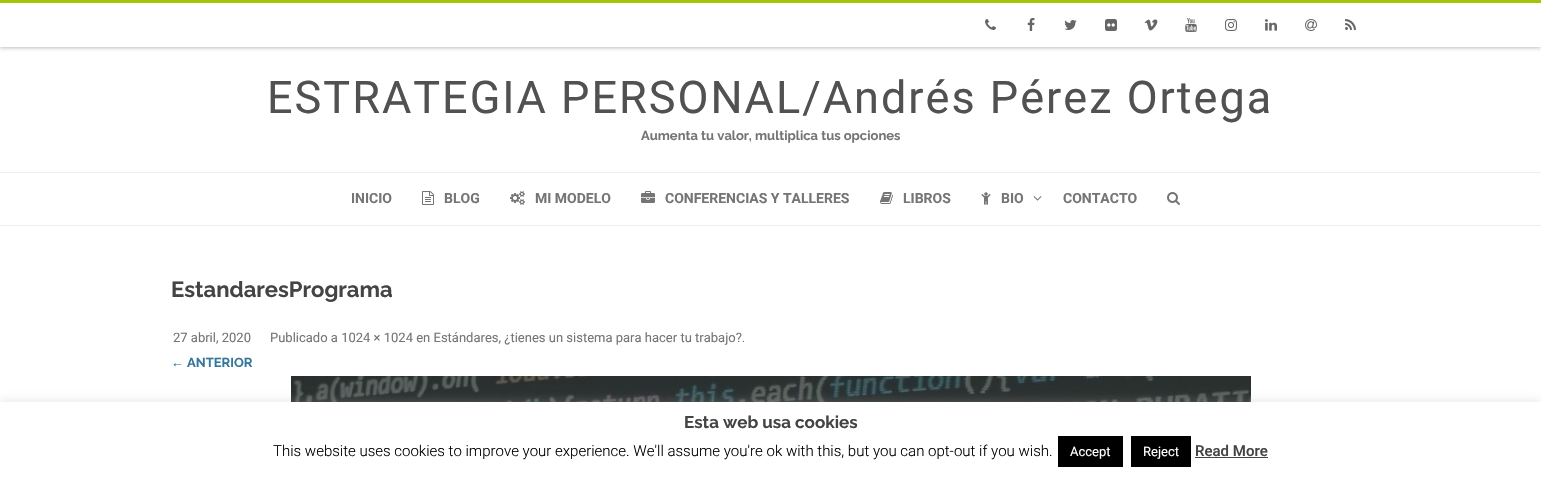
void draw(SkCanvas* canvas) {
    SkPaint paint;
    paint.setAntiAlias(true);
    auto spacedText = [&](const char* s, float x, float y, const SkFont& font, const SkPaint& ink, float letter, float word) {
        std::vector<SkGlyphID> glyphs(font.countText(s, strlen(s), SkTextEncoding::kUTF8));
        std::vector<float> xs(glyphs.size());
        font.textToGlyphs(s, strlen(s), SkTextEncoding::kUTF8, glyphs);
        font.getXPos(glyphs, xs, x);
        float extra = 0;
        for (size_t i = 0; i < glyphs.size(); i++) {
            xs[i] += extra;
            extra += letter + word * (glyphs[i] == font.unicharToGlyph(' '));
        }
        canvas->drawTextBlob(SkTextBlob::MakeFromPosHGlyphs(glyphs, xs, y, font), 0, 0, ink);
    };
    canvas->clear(0xFFFFFFFF);
    canvas->save();
    canvas->clipRect(SkRect::MakeXYWH(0, 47, 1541, 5));
    paint.setColor(0xBFA7A9A4);
    paint.setMaskFilter(SkMaskFilter::MakeBlur(kNormal_SkBlurStyle, 2));
    canvas->drawRect(SkRect::MakeXYWH(0, 1, 1541, 47), paint);
    paint.setMaskFilter(nullptr);
    canvas->restore();
    paint.setColor(0xFFA2C605);
    canvas->drawRect(SkRect::MakeXYWH(0, 0, 1541, 3), paint);
    canvas->drawImageRect(SkImages::DeferredFromEncodedData(SkData::MakeFromFileName("img1.png")), SkRect::MakeXYWH(985, 19, 11, 11), SkSamplingOptions());
    canvas->drawImageRect(SkImages::DeferredFromEncodedData(SkData::MakeFromFileName("img2.png")), SkRect::MakeXYWH(1027, 18, 8, 13), SkSamplingOptions());
    canvas->drawImageRect(SkImages::DeferredFromEncodedData(SkData::MakeFromFileName("img3.png")), SkRect::MakeXYWH(1064, 20, 13, 10), SkSamplingOptions());
    canvas->drawImageRect(SkImages::DeferredFromEncodedData(SkData::MakeFromFileName("img4.png")), SkRect::MakeXYWH(1105, 19, 12, 12), SkSamplingOptions());
    canvas->drawImageRect(SkImages::DeferredFromEncodedData(SkData::MakeFromFileName("img5.png")), SkRect::MakeXYWH(1144, 19, 14, 12), SkSamplingOptions());
    canvas->drawImageRect(SkImages::DeferredFromEncodedData(SkData::MakeFromFileName("img6.png")), SkRect::MakeXYWH(1185, 18, 12, 14), SkSamplingOptions());
    canvas->drawImageRect(SkImages::DeferredFromEncodedData(SkData::MakeFromFileName("img7.png")), SkRect::MakeXYWH(1225, 19, 12, 12), SkSamplingOptions());
    canvas->drawImageRect(SkImages::DeferredFromEncodedData(SkData::MakeFromFileName("img8.png")), SkRect::MakeXYWH(1265, 19, 12, 12), SkSamplingOptions());
    canvas->drawImageRect(SkImages::DeferredFromEncodedData(SkData::MakeFromFileName("img9.png")), SkRect::MakeXYWH(1305, 19, 12, 12), SkSamplingOptions());
    canvas->drawImageRect(SkImages::DeferredFromEncodedData(SkData::MakeFromFileName("img10.png")), SkRect::MakeXYWH(1345, 19, 11, 11), SkSamplingOptions());
    SkFont font1(fontMgr->matchFamilyStyle("Roboto", SkFontStyle::Normal()), 45);
    font1.setSubpixel(true);
    paint.setColor(0xFF515151);
    spacedText("ESTRATEGIA PERSONAL/Andrés Pérez Ortega", 267, 113, font1, paint, 2, 0);
    SkFont font2(fontMgr->matchFamilyStyle("Raleway", SkFontStyle::Bold()), 13);
    font2.setSubpixel(true);
    paint.setColor(0xFF757575);
    canvas->drawString("Aumenta tu valor, multiplica tus opciones", 641, 140, font2, paint);
    paint.setColor(0xFFEDEDED);
    canvas->drawRect(SkRect::MakeXYWH(0, 172, 1541, 1), paint);
    canvas->drawRect(SkRect::MakeXYWH(0, 225, 1541, 1), paint);
    SkFont font3(fontMgr->matchFamilyStyle("Roboto", SkFontStyle::Bold()), 14);
    font3.setSubpixel(true);
    paint.setColor(0xFF757575);
    canvas->drawString("INICIO", 351, 203, font3, paint);
    canvas->drawImageRect(SkImages::DeferredFromEncodedData(SkData::MakeFromFileName("img11.png")), SkRect::MakeXYWH(422, 191, 12, 14), SkSamplingOptions());
    canvas->drawString("BLOG", 444, 203, font3, paint);
    canvas->drawImageRect(SkImages::DeferredFromEncodedData(SkData::MakeFromFileName("img12.png")), SkRect::MakeXYWH(510, 191, 15, 14), SkSamplingOptions());
    canvas->drawString("MI MODELO", 535, 203, font3, paint);
    canvas->drawImageRect(SkImages::DeferredFromEncodedData(SkData::MakeFromFileName("img13.png")), SkRect::MakeXYWH(641, 191, 14, 12), SkSamplingOptions());
    canvas->drawString("CONFERENCIAS Y TALLERES", 665, 203, font3, paint);
    canvas->drawImageRect(SkImages::DeferredFromEncodedData(SkData::MakeFromFileName("img14.png")), SkRect::MakeXYWH(880, 192, 13, 12), SkSamplingOptions());
    canvas->drawString("LIBROS", 903, 203, font3, paint);
    canvas->drawImageRect(SkImages::DeferredFromEncodedData(SkData::MakeFromFileName("img15.png")), SkRect::MakeXYWH(981, 192, 10, 13), SkSamplingOptions());
    canvas->drawString("BIO", 1001, 203, font3, paint);
    canvas->drawImageRect(SkImages::DeferredFromEncodedData(SkData::MakeFromFileName("img16.png")), SkRect::MakeXYWH(1033, 196, 9, 5), SkSamplingOptions());
    canvas->drawString("CONTACTO", 1063, 203, font3, paint);
    canvas->drawImageRect(SkImages::DeferredFromEncodedData(SkData::MakeFromFileName("img17.png")), SkRect::MakeXYWH(1167, 192, 13, 13), SkSamplingOptions());
    SkFont font4(fontMgr->matchFamilyStyle("Raleway", SkFontStyle::Bold()), 22);
    font4.setSubpixel(true);
    paint.setColor(0xFF444444);
    canvas->drawString("EstandaresPrograma", 171, 297, font4, paint);
    SkFont font5(fontMgr->matchFamilyStyle("Roboto", SkFontStyle::Normal()), 13);
    font5.setSubpixel(true);
    paint.setColor(0xFF757575);
    canvas->drawString("27 abril, 2020", 173, 342, font5, paint);
    canvas->drawString("Publicado a 1024 × 1024 en Estándares, ¿tienes un sistema para hacer tu trabajo?.", 270, 342, font5, paint);
    SkFont font6(fontMgr->matchFamilyStyle("Liberation Sans", SkFontStyle::Bold()), 13);
    font6.setSubpixel(true);
    paint.setColor(0xFF337799);
    canvas->drawString("←", 171, 367, font6, paint);
    canvas->drawString("ANTERIOR", 187, 367, font2, paint);
    canvas->drawImageRect(SkImages::DeferredFromEncodedData(SkData::MakeFromFileName("img18.png")), SkRect::MakeXYWH(291, 376, 960, 26), SkSamplingOptions());
    paint.setColor(0x4DACABAB);
    paint.setMaskFilter(SkMaskFilter::MakeBlur(kNormal_SkBlurStyle, 5));
    canvas->drawRect(SkRect::MakeXYWH(0, 401, 1541, 77), paint);
    paint.setMaskFilter(nullptr);
    paint.setColor(0xFFFFFFFF);
    canvas->drawRect(SkRect::MakeXYWH(0, 402, 1541, 77), paint);
    SkFont font7(fontMgr->matchFamilyStyle("Raleway", SkFontStyle::Bold()), 17);
    font7.setSubpixel(true);
    paint.setColor(0xFF444444);
    canvas->drawString("Esta web usa cookies", 684, 428, font7, paint);
    SkFont font8(fontMgr->matchFamilyStyle("Roboto", SkFontStyle(300, SkFontStyle::kNormal_Width, SkFontStyle::kUpright_Slant)), 15);
    font8.setSubpixel(true);
    paint.setColor(0xFF000000);
    canvas->drawString("This website uses cookies to improve your experience. We'll assume you're ok with this, but you can opt-out if you wish.", 273, 456, font8, paint);
    canvas->drawRect(SkRect::MakeXYWH(1058, 436, 65, 31), paint);
    paint.setColor(0xFFFFFFFF);
    canvas->drawString("Accept", 1070, 456, font5, paint);
    paint.setColor(0xFF000000);
    canvas->drawRect(SkRect::MakeXYWH(1131, 436, 60, 31), paint);
    paint.setColor(0xFFFFFFFF);
    canvas->drawString("Reject", 1143, 456, font5, paint);
    SkFont font9(fontMgr->matchFamilyStyle("Roboto", SkFontStyle(500, SkFontStyle::kNormal_Width, SkFontStyle::kUpright_Slant)), 15);
    font9.setSubpixel(true);
    paint.setColor(0xFF444444);
    canvas->drawString("Read More", 1195, 456, font9, paint);
    canvas->drawRect(SkRect::MakeXYWH(1195, 457, 73, 1), paint);
}
